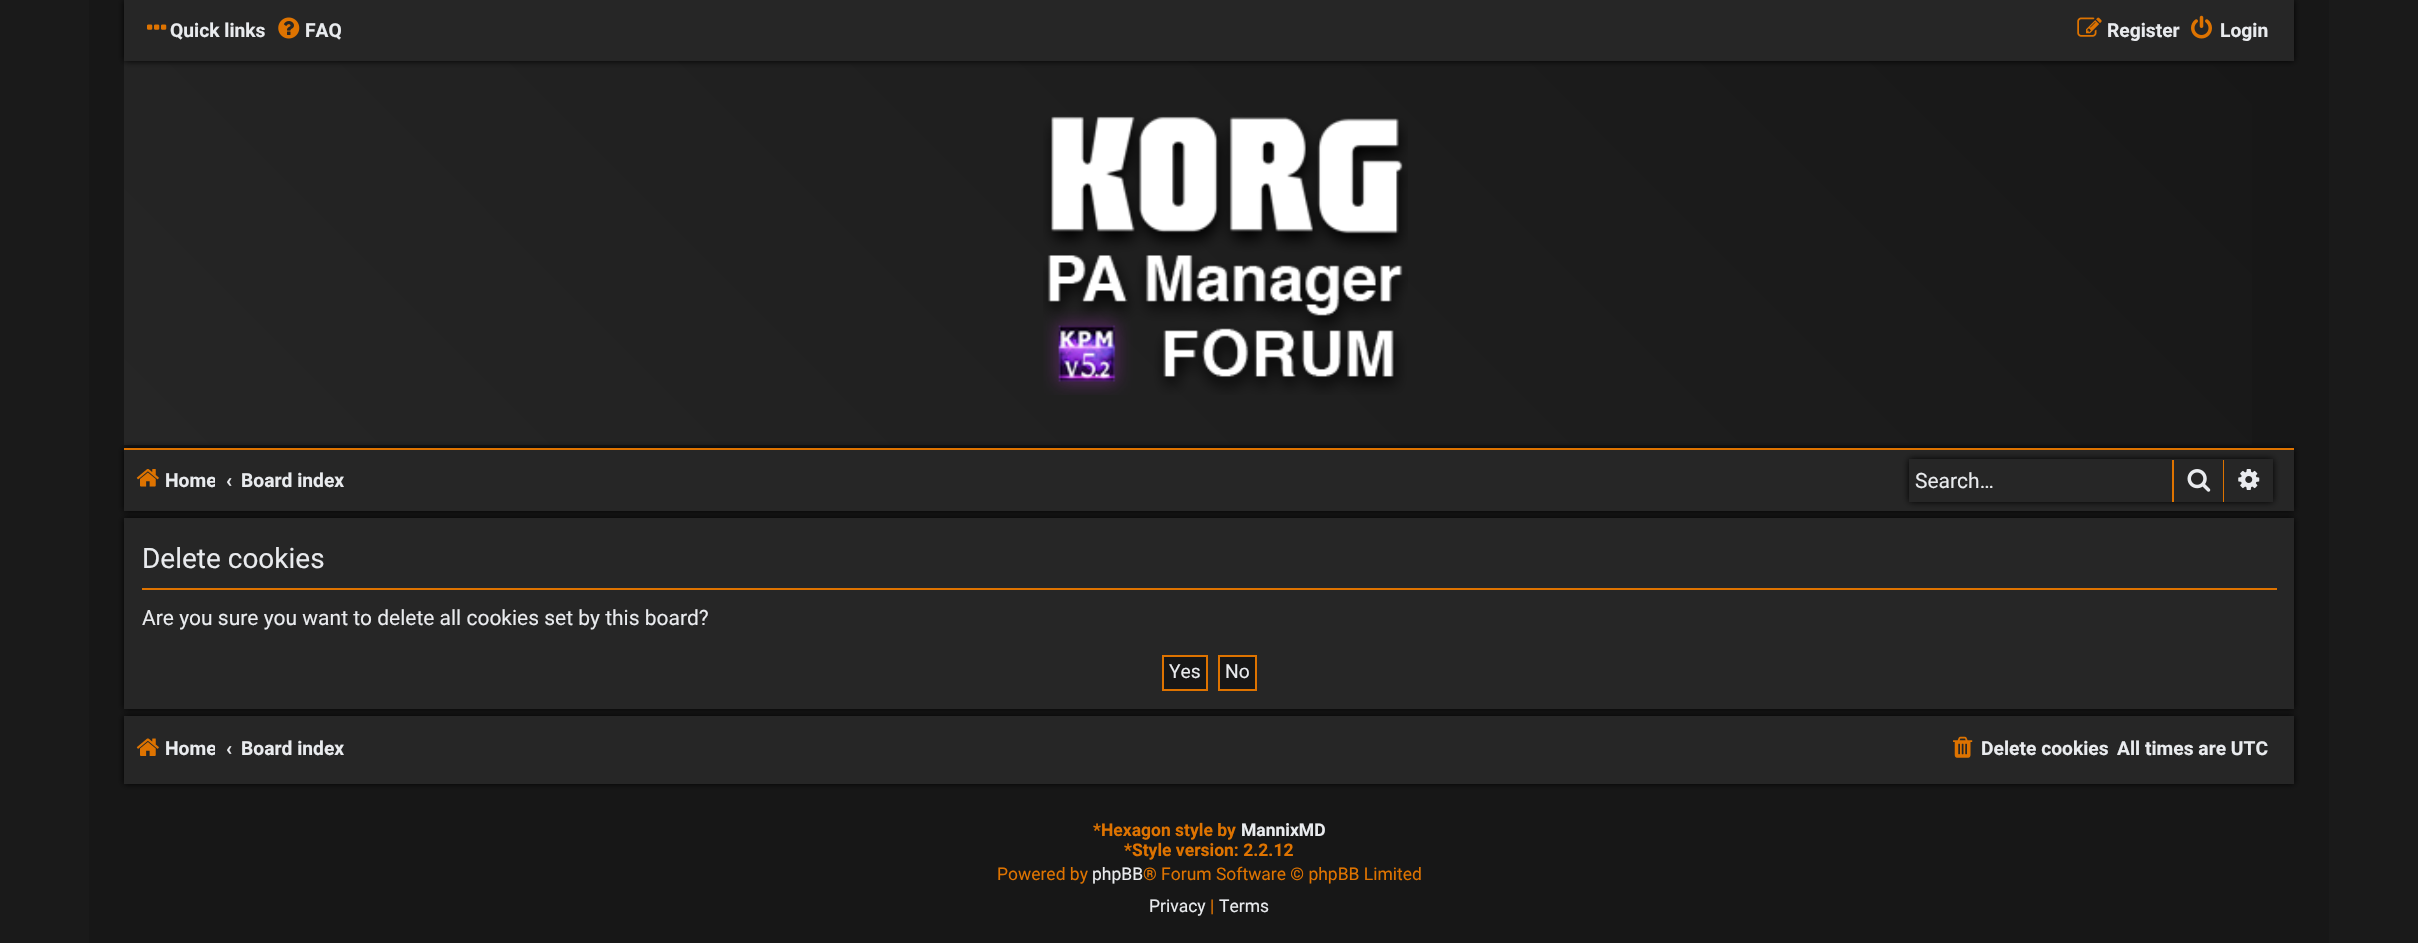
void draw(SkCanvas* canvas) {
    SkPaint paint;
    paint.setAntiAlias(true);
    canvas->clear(0xFF1A1A1A);
    paint.setColor(0xFF171717);
    canvas->drawRect(SkRect::MakeXYWH(89, 0, 2240, 943), paint);
    {
        const SkColor colors[] = {0xFF262626, 0xFF171717};
        const float stops[] = {0, 1};
        const SkPoint ends[] = {{571, 891}, {1848, -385}};
        paint.setShader(SkGradientShader::MakeLinear(ends, colors, stops, 2, SkTileMode::kClamp));
        paint.setAlpha(255);
    }
    canvas->drawRect(SkRect::MakeXYWH(124, 61, 2128, 384), paint);
    paint.setShader(nullptr);
    paint.setColor(0xFF000000);
    paint.setMaskFilter(SkMaskFilter::MakeBlur(kNormal_SkBlurStyle, 3.5f));
    canvas->drawRect(SkRect::MakeXYWH(124, 0, 2170, 61), paint);
    paint.setMaskFilter(nullptr);
    paint.setColor(0xFF262626);
    canvas->drawRect(SkRect::MakeXYWH(124, 0, 2170, 61), paint);
    canvas->drawImageRect(SkImages::DeferredFromEncodedData(SkData::MakeFromFileName("img1.png")), SkRect::MakeXYWH(147, 24, 20, 6), SkSamplingOptions());
    SkFont font1(fontMgr->matchFamilyStyle("Roboto", SkFontStyle::Bold()), 19.25f);
    font1.setSubpixel(true);
    paint.setColor(0xFFE9EBEE);
    canvas->drawString("Quick links", 170, 37, font1, paint);
    canvas->drawImageRect(SkImages::DeferredFromEncodedData(SkData::MakeFromFileName("img2.png")), SkRect::MakeXYWH(278, 17, 22, 22), SkSamplingOptions());
    canvas->drawString("FAQ", 305, 37, font1, paint);
    canvas->drawImageRect(SkImages::DeferredFromEncodedData(SkData::MakeFromFileName("img3.png")), SkRect::MakeXYWH(2077, 17, 25, 20), SkSamplingOptions());
    canvas->drawString("Register", 2107, 37, font1, paint);
    canvas->drawImageRect(SkImages::DeferredFromEncodedData(SkData::MakeFromFileName("img4.png")), SkRect::MakeXYWH(2191, 15, 21, 24), SkSamplingOptions());
    canvas->drawString("Login", 2220, 37, font1, paint);
    canvas->drawImageRect(SkImages::DeferredFromEncodedData(SkData::MakeFromFileName("img5.png")), SkRect::MakeXYWH(1043, 116, 365, 279), SkSamplingOptions());
    paint.setColor(0xFF000000);
    paint.setMaskFilter(SkMaskFilter::MakeBlur(kNormal_SkBlurStyle, 3.5f));
    canvas->drawRect(SkRect::MakeXYWH(124, 448, 2170, 63), paint);
    paint.setMaskFilter(nullptr);
    paint.setColor(0xFF262626);
    canvas->drawRect(SkRect::MakeXYWH(124, 450, 2170, 61), paint);
    paint.setColor(0xFFDE7300);
    canvas->drawRect(SkRect::MakeXYWH(124, 448, 2170, 2), paint);
    canvas->drawImageRect(SkImages::DeferredFromEncodedData(SkData::MakeFromFileName("img6.png")), SkRect::MakeXYWH(136, 469, 23, 18), SkSamplingOptions());
    canvas->save();
    canvas->clipRect(SkRect::MakeXYWH(133, 460, 82, 42));
    paint.setColor(0xFFE9EBEE);
    canvas->drawString("Home", 165, 487, font1, paint);
    canvas->restore();
    canvas->drawString("‹", 226, 487, font1, paint);
    canvas->drawString("Board index", 241, 487, font1, paint);
    canvas->save();
    canvas->clipPath(SkPathBuilder(SkPathFillType::kEvenOdd).moveTo(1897, 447).lineTo(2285, 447).lineTo(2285, 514).lineTo(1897, 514).close().moveTo(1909, 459).lineTo(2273, 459).lineTo(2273, 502).lineTo(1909, 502).close().detach(), true);
    paint.setColor(0xFF000000);
    paint.setMaskFilter(SkMaskFilter::MakeBlur(kNormal_SkBlurStyle, 3.5f));
    canvas->drawRect(SkRect::MakeXYWH(1909, 459, 364, 43), paint);
    paint.setMaskFilter(nullptr);
    canvas->restore();
    paint.setColor(0xFF262626);
    canvas->drawRect(SkRect::MakeXYWH(1909, 460, 1, 42), paint);
    SkFont font2(fontMgr->matchFamilyStyle("Roboto", SkFontStyle::Normal()), 21);
    font2.setSubpixel(true);
    paint.setColor(0xFFE9EBEE);
    canvas->drawString("Search…", 1915, 488, font2, paint);
    paint.setColor(0xFFDE7300);
    canvas->drawRect(SkRect::MakeXYWH(2223, 460, 1, 42), paint);
    canvas->drawRect(SkRect::MakeXYWH(2172, 460, 2, 42), paint);
    canvas->drawImageRect(SkImages::DeferredFromEncodedData(SkData::MakeFromFileName("img7.png")), SkRect::MakeXYWH(2187, 469, 24, 23), SkSamplingOptions());
    canvas->drawImageRect(SkImages::DeferredFromEncodedData(SkData::MakeFromFileName("img8.png")), SkRect::MakeXYWH(2238, 469, 22, 21), SkSamplingOptions());
    paint.setColor(0xFF000000);
    paint.setMaskFilter(SkMaskFilter::MakeBlur(kNormal_SkBlurStyle, 3.5f));
    canvas->drawRect(SkRect::MakeXYWH(124, 518, 2170, 191), paint);
    paint.setMaskFilter(nullptr);
    paint.setColor(0xFF262626);
    canvas->drawRect(SkRect::MakeXYWH(124, 518, 2170, 191), paint);
    paint.setColor(0xFFDE7300);
    canvas->drawRect(SkRect::MakeXYWH(142, 588, 2135, 2), paint);
    SkFont font3(fontMgr->matchFamilyStyle("Roboto", SkFontStyle::Normal()), 28);
    font3.setSubpixel(true);
    paint.setColor(0xFFE9EBEE);
    canvas->drawString("Delete cookies", 142, 568, font3, paint);
    canvas->drawString("Are you sure you want to delete all cookies set by this board?", 142, 625, font2, paint);
    paint.setColor(0xFF171717);
    canvas->drawRect(SkRect::MakeXYWH(1163, 656, 44, 34), paint);
    paint.setStyle(SkPaint::kStroke_Style);
    paint.setStrokeWidth(2);
    paint.setColor(0xFFDE7300);
    canvas->drawRect(SkRect::MakeXYWH(1163, 656, 44, 34), paint);
    SkFont font4(fontMgr->matchFamilyStyle("Roboto", SkFontStyle::Normal()), 19.25f);
    font4.setSubpixel(true);
    paint.setStyle(SkPaint::kFill_Style);
    paint.setColor(0xFFE9EBEE);
    canvas->drawString("Yes", 1169, 678, font4, paint);
    paint.setColor(0xFF171717);
    canvas->drawRect(SkRect::MakeXYWH(1219, 656, 37, 34), paint);
    paint.setStyle(SkPaint::kStroke_Style);
    paint.setColor(0xFFDE7300);
    canvas->drawRect(SkRect::MakeXYWH(1219, 656, 37, 34), paint);
    paint.setStyle(SkPaint::kFill_Style);
    paint.setColor(0xFFE9EBEE);
    canvas->drawString("No", 1225, 678, font4, paint);
    paint.setColor(0xFF000000);
    paint.setMaskFilter(SkMaskFilter::MakeBlur(kNormal_SkBlurStyle, 3.5f));
    canvas->drawRect(SkRect::MakeXYWH(124, 716, 2170, 68), paint);
    paint.setMaskFilter(nullptr);
    paint.setColor(0xFF262626);
    canvas->drawRect(SkRect::MakeXYWH(124, 716, 2170, 68), paint);
    canvas->drawImageRect(SkImages::DeferredFromEncodedData(SkData::MakeFromFileName("img9.png")), SkRect::MakeXYWH(136, 738, 23, 18), SkSamplingOptions());
    canvas->save();
    canvas->clipRect(SkRect::MakeXYWH(133, 730, 82, 42));
    paint.setColor(0xFFE9EBEE);
    canvas->drawString("Home", 165, 755, font1, paint);
    canvas->restore();
    canvas->drawString("‹", 226, 755, font1, paint);
    canvas->drawString("Board index", 241, 755, font1, paint);
    canvas->drawImageRect(SkImages::DeferredFromEncodedData(SkData::MakeFromFileName("img10.png")), SkRect::MakeXYWH(1953, 736, 20, 22), SkSamplingOptions());
    canvas->drawString("Delete cookies", 1981, 755, font1, paint);
    canvas->drawString("All times are UTC", 2117, 755, font1, paint);
    SkFont font5(fontMgr->matchFamilyStyle("Roboto", SkFontStyle::Bold()), 17.5f);
    font5.setSubpixel(true);
    paint.setColor(0xFFDE7300);
    canvas->drawString("*Hexagon style by", 1093, 836, font5, paint);
    paint.setColor(0xFFE9EBEE);
    canvas->drawString("MannixMD", 1241, 836, font5, paint);
    paint.setColor(0xFFDE7300);
    canvas->drawString("*Style version: 2.2.12", 1124, 856, font5, paint);
    SkFont font6(fontMgr->matchFamilyStyle("Roboto", SkFontStyle::Normal()), 17.5f);
    font6.setSubpixel(true);
    canvas->drawString("Powered by", 997, 880, font6, paint);
    paint.setColor(0xFFE9EBEE);
    canvas->drawString("phpBB", 1092, 880, font6, paint);
    paint.setColor(0xFFDE7300);
    canvas->drawString("® Forum Software © phpBB Limited", 1143, 880, font6, paint);
    paint.setColor(0xFFE9EBEE);
    canvas->drawString("Privacy", 1149, 912, font6, paint);
    paint.setColor(0xFFDE7300);
    canvas->drawString("|", 1210, 912, font6, paint);
    paint.setColor(0xFFE9EBEE);
    canvas->drawString("Terms", 1219, 912, font6, paint);
}
